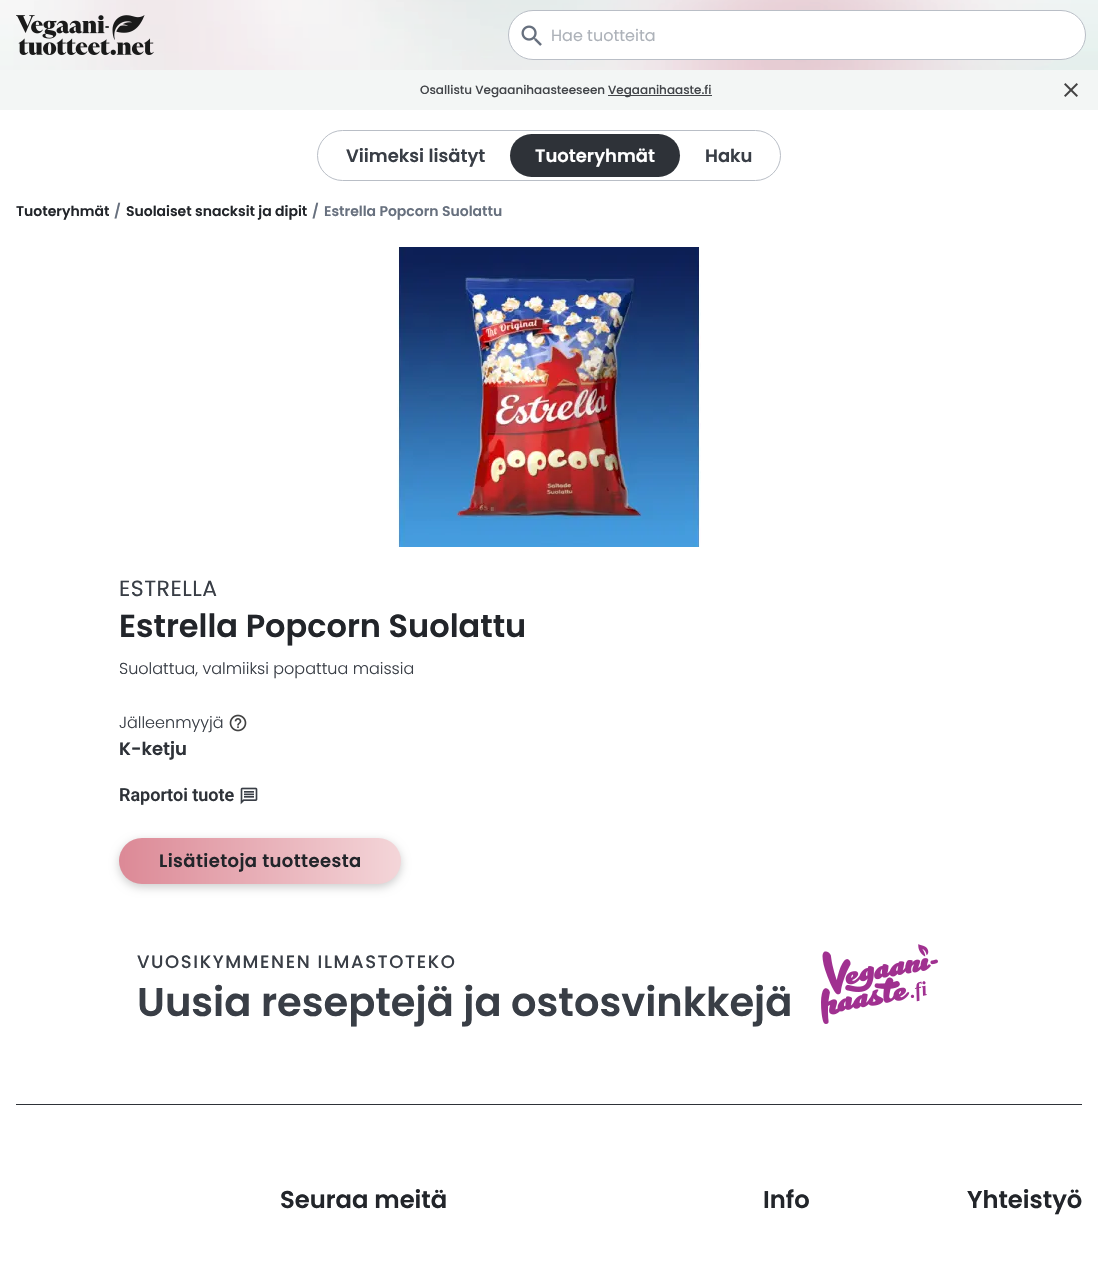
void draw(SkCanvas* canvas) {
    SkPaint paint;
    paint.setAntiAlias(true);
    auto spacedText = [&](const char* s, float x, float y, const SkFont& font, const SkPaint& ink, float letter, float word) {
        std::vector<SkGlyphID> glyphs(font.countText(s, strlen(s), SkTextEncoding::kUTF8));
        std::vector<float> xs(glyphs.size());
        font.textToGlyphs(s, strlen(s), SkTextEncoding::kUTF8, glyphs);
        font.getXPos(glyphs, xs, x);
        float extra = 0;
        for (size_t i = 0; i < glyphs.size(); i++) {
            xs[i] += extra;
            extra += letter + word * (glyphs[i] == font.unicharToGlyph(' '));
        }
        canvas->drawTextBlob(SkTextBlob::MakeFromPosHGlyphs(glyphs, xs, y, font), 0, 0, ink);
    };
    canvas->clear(0xFFFFFFFF);
    canvas->drawImageRect(SkImages::DeferredFromEncodedData(SkData::MakeFromFileName("img1.png")), SkRect::MakeXYWH(0, 0, 1098, 70), SkSamplingOptions());
    canvas->drawImageRect(SkImages::DeferredFromEncodedData(SkData::MakeFromFileName("img2.png")), SkRect::MakeXYWH(16, 15, 138, 40), SkSamplingOptions());
    paint.setColor(0xFFFFFFFF);
    canvas->drawRoundRect(SkRect::MakeXYWH(508.5f, 10.5f, 577, 49), 24.5f, 24.5f, paint);
    paint.setStyle(SkPaint::kStroke_Style);
    paint.setStrokeWidth(1);
    paint.setColor(0xFFB9BEC6);
    canvas->drawRoundRect(SkRect::MakeXYWH(508.5f, 10.5f, 577, 49), 24.5f, 24.5f, paint);
    canvas->drawImageRect(SkImages::DeferredFromEncodedData(SkData::MakeFromFileName("img3.png")), SkRect::MakeXYWH(521, 25, 21, 21), SkSamplingOptions());
    SkFont font1(fontMgr->matchFamilyStyle("Poppins", SkFontStyle::Normal()), 16);
    font1.setSubpixel(true);
    paint.setStyle(SkPaint::kFill_Style);
    paint.setColor(0xFFADB2B9);
    canvas->drawString("Hae tuotteita", 551, 41, font1, paint);
    paint.setColor(0xFFF3F6F5);
    canvas->drawRect(SkRect::MakeXYWH(0, 70, 1098, 40), paint);
    SkFont font2(fontMgr->matchFamilyStyle("Poppins", SkFontStyle(500, SkFontStyle::kNormal_Width, SkFontStyle::kUpright_Slant)), 12);
    font2.setSubpixel(true);
    paint.setColor(0xFF424549);
    canvas->drawString("Osallistu Vegaanihaasteeseen", 420, 94, font2, paint);
    canvas->drawRect(SkRect::MakeXYWH(608, 95, 104, 1), paint);
    canvas->drawString("Vegaanihaaste.fi", 608, 94, font2, paint);
    canvas->drawImageRect(SkImages::DeferredFromEncodedData(SkData::MakeFromFileName("img4.png")), SkRect::MakeXYWH(1064, 83, 14, 14), SkSamplingOptions());
    paint.setStyle(SkPaint::kStroke_Style);
    paint.setColor(0xFFB9BEC6);
    canvas->drawRoundRect(SkRect::MakeXYWH(317.5f, 130.5f, 463, 50), 25, 25, paint);
    SkFont font3(fontMgr->matchFamilyStyle("Poppins", SkFontStyle(600, SkFontStyle::kNormal_Width, SkFontStyle::kUpright_Slant)), 18);
    font3.setSubpixel(true);
    paint.setStyle(SkPaint::kFill_Style);
    paint.setColor(0xFF393E46);
    canvas->drawString("Viimeksi lisätyt", 346, 162, font3, paint);
    paint.setColor(0xFF2E3238);
    canvas->drawRoundRect(SkRect::MakeXYWH(510, 134, 170, 43), 21.5f, 21.5f, paint);
    paint.setColor(0xFFFFFFFF);
    canvas->drawString("Tuoteryhmät", 535, 162, font3, paint);
    paint.setColor(0xFF393E46);
    canvas->drawString("Haku", 705, 162, font3, paint);
    SkFont font4(fontMgr->matchFamilyStyle("Poppins", SkFontStyle(600, SkFontStyle::kNormal_Width, SkFontStyle::kUpright_Slant)), 14);
    font4.setSubpixel(true);
    paint.setColor(0xFF22252A);
    canvas->drawString("Tuoteryhmät", 16, 216, font4, paint);
    paint.setColor(0xFF67707E);
    canvas->drawString("/", 114, 216, font4, paint);
    paint.setColor(0xFF22252A);
    canvas->drawString("Suolaiset snacksit ja dipit", 126, 216, font4, paint);
    paint.setColor(0xFF67707E);
    canvas->drawString("/", 312, 216, font4, paint);
    canvas->drawString("Estrella Popcorn Suolattu", 324, 216, font4, paint);
    canvas->drawImageRect(SkImages::DeferredFromEncodedData(SkData::MakeFromFileName("img5.png")), SkRect::MakeXYWH(397, 247, 304, 300), SkSamplingOptions());
    SkFont font5(fontMgr->matchFamilyStyle("Poppins", SkFontStyle::Normal()), 22);
    font5.setSubpixel(true);
    paint.setColor(0xFF393E46);
    spacedText("ESTRELLA", 119, 596, font5, paint, 0.5f, 0);
    SkFont font6(fontMgr->matchFamilyStyle("Poppins", SkFontStyle(600, SkFontStyle::kNormal_Width, SkFontStyle::kUpright_Slant)), 32);
    font6.setSubpixel(true);
    paint.setColor(0xFF22252A);
    canvas->drawString("Estrella Popcorn Suolattu", 119, 637, font6, paint);
    SkFont font7(fontMgr->matchFamilyStyle("Poppins", SkFontStyle(300, SkFontStyle::kNormal_Width, SkFontStyle::kUpright_Slant)), 16);
    font7.setSubpixel(true);
    paint.setColor(0xFF393E46);
    canvas->drawString("Suolattua, valmiiksi popattua maissia", 119, 674, font7, paint);
    canvas->drawString("Jälleenmyyjä", 119, 728, font7, paint);
    canvas->drawImageRect(SkImages::DeferredFromEncodedData(SkData::MakeFromFileName("img6.png")), SkRect::MakeXYWH(229, 714, 18, 18), SkSamplingOptions());
    paint.setColor(0xFF2E3238);
    canvas->drawString("K-ketju", 119, 755, font3, paint);
    SkFont font8(fontMgr->matchFamilyStyle("Roboto", SkFontStyle(600, SkFontStyle::kNormal_Width, SkFontStyle::kUpright_Slant)), 18);
    font8.setSubpixel(true);
    canvas->drawString("Raportoi tuote", 119, 801, font8, paint);
    canvas->drawImageRect(SkImages::DeferredFromEncodedData(SkData::MakeFromFileName("img7.png")), SkRect::MakeXYWH(240, 787, 18, 18), SkSamplingOptions());
    paint.setColor(0x33000000);
    paint.setMaskFilter(SkMaskFilter::MakeBlur(kNormal_SkBlurStyle, 5));
    canvas->drawRoundRect(SkRect::MakeXYWH(119, 841, 282, 46), 23, 23, paint);
    paint.setMaskFilter(nullptr);
    {
        const SkColor colors[] = {0xFFDC8996, 0xFFF4D7DA, 0xFFF4D7DA};
        const float stops[] = {0, 0.51f, 1};
        const SkPoint ends[] = {{119, 861}, {683, 861}};
        paint.setShader(SkGradientShader::MakeLinear(ends, colors, stops, 3, SkTileMode::kClamp));
        paint.setAlpha(255);
    }
    canvas->drawRoundRect(SkRect::MakeXYWH(119, 838, 282, 46), 23, 23, paint);
    paint.setShader(nullptr);
    paint.setColor(0xFF22252A);
    spacedText("Lisätietoja tuotteesta", 159, 867, font3, paint, 0.4f, 0);
    SkFont font9(fontMgr->matchFamilyStyle("Poppins", SkFontStyle(500, SkFontStyle::kNormal_Width, SkFontStyle::kUpright_Slant)), 18);
    font9.setSubpixel(true);
    paint.setColor(0xFF393E46);
    spacedText("VUOSIKYMMENEN ILMASTOTEKO", 137, 968, font9, paint, 1.6f, 0);
    SkFont font10(fontMgr->matchFamilyStyle("Poppins", SkFontStyle(600, SkFontStyle::kNormal_Width, SkFontStyle::kUpright_Slant)), 40);
    font10.setSubpixel(true);
    canvas->drawString("Uusia reseptejä ja ostosvinkkejä", 137, 1016, font10, paint);
    canvas->drawImageRect(SkImages::DeferredFromEncodedData(SkData::MakeFromFileName("img8.png")), SkRect::MakeXYWH(821, 944, 117, 80), SkSamplingOptions());
    SkFont font11(fontMgr->matchFamilyStyle("Liberation Serif", SkFontStyle::BoldItalic()), 20);
    font11.setSubpixel(true);
    paint.setColor(0xFFA03090);
    canvas->save();
    canvas->rotate(-11.2f, 911, 998);
    canvas->drawString(".fi", 911, 998, font11, paint);
    canvas->restore();
    paint.setColor(0xFF2E3238);
    canvas->drawRect(SkRect::MakeXYWH(16, 1104, 1066, 1), paint);
    SkFont font12(fontMgr->matchFamilyStyle("Poppins", SkFontStyle(600, SkFontStyle::kNormal_Width, SkFontStyle::kUpright_Slant)), 24.25f);
    font12.setSubpixel(true);
    paint.setColor(0xFF22252A);
    canvas->drawString("Seuraa meitä", 280, 1208, font12, paint);
    canvas->drawString("Info", 763, 1208, font12, paint);
    canvas->drawString("Yhteistyö", 967, 1208, font12, paint);
}
